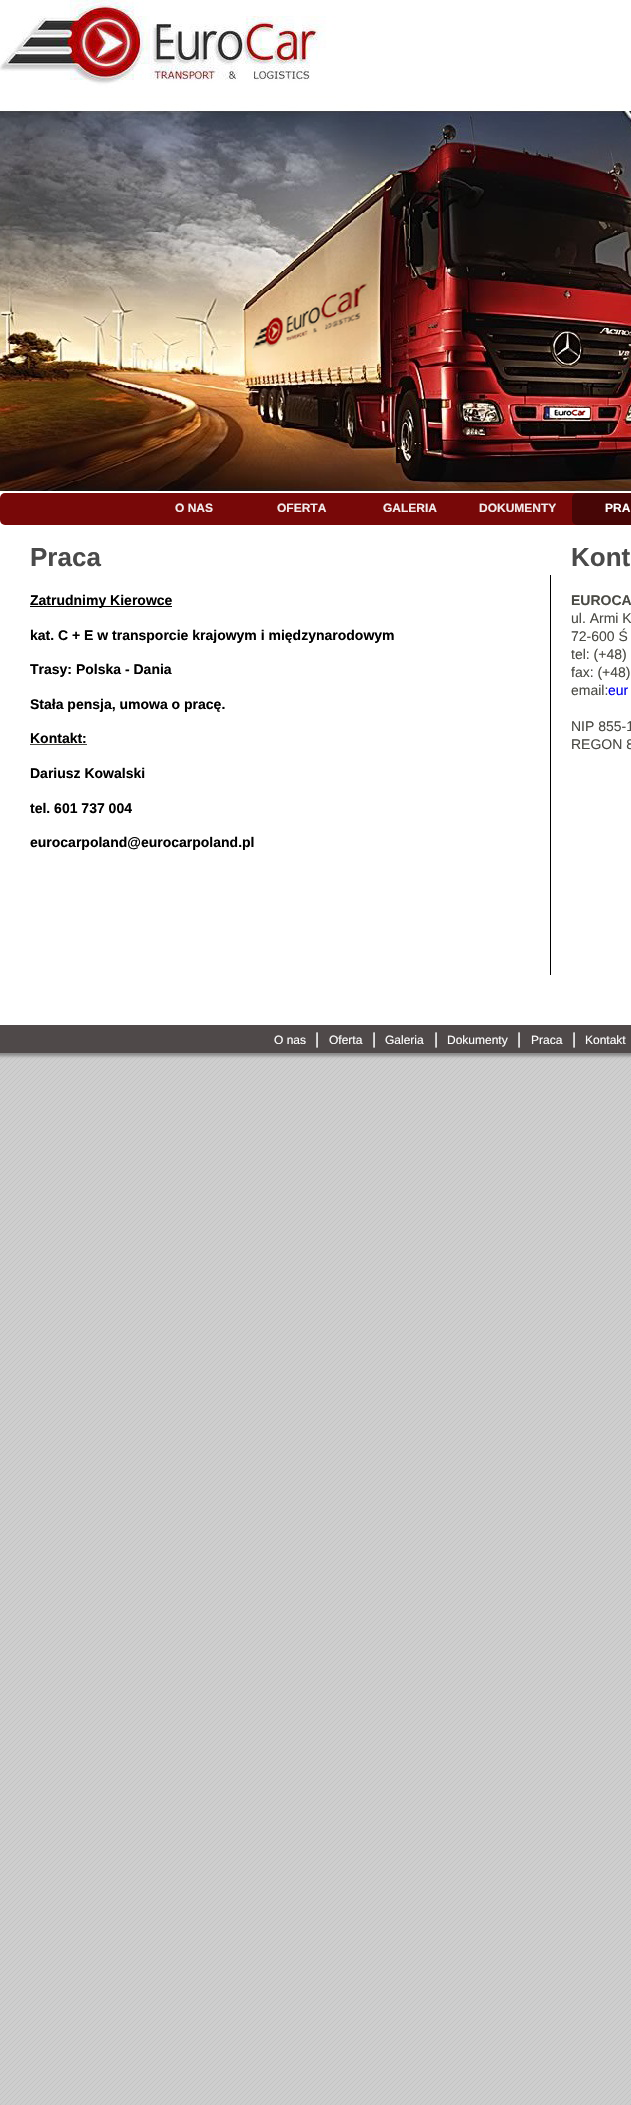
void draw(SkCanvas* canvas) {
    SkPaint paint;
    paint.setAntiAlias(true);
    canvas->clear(0xFFFFFFFF);
    canvas->drawImageRect(SkImages::DeferredFromEncodedData(SkData::MakeFromFileName("img1.png")), SkRect::MakeXYWH(0, 1053, 631, 1052), SkSamplingOptions());
    paint.setColor(0xFF888888);
    paint.setMaskFilter(SkMaskFilter::MakeBlur(kNormal_SkBlurStyle, 1.5f));
    canvas->drawRect(SkRect::MakeXYWH(-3, -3, 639, 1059), paint);
    paint.setMaskFilter(nullptr);
    paint.setColor(0xFFFFFFFF);
    canvas->drawRect(SkRect::MakeXYWH(0, 492, 631, 533), paint);
    canvas->drawImageRect(SkImages::DeferredFromEncodedData(SkData::MakeFromFileName("img2.png")), SkRect::MakeXYWH(0, 0, 631, 492), SkSamplingOptions());
    paint.setColor(0xFF780808);
    canvas->drawRoundRect(SkRect::MakeXYWH(0, 493, 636, 32), 5, 5, paint);
    SkFont font1(fontMgr->matchFamilyStyle("Liberation Sans", SkFontStyle::Bold()), 12);
    font1.setSubpixel(true);
    paint.setColor(0xFFF2EBEB);
    canvas->drawString("O NAS", 175, 512, font1, paint);
    canvas->drawString("OFERTA", 277, 512, font1, paint);
    canvas->drawString("GALERIA", 383, 512, font1, paint);
    canvas->drawString("DOKUMENTY", 479, 512, font1, paint);
    paint.setColor(0xFF470606);
    canvas->drawRoundRect(SkRect::MakeXYWH(572, 493, 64, 32), 5, 5, paint);
    paint.setColor(0xFFFFFFFF);
    canvas->drawString("PRA", 605, 512, font1, paint);
    SkFont font2(fontMgr->matchFamilyStyle("Liberation Sans", SkFontStyle::Bold()), 26);
    font2.setSubpixel(true);
    paint.setColor(0xFF4A4A4A);
    canvas->drawString("Praca", 30, 566, font2, paint);
    paint.setColor(0xFF000000);
    canvas->drawRect(SkRect::MakeXYWH(30, 606, 142, 1), paint);
    SkFont font3(fontMgr->matchFamilyStyle("Liberation Sans", SkFontStyle::Bold()), 14);
    font3.setSubpixel(true);
    canvas->drawString("Zatrudnimy Kierowce", 30, 605, font3, paint);
    canvas->drawString("kat. C + E w transporcie krajowym i międzynarodowym", 30, 640, font3, paint);
    canvas->drawString("Trasy: Polska - Dania", 30, 674, font3, paint);
    canvas->drawString("Stała pensja, umowa o pracę.", 30, 709, font3, paint);
    canvas->drawString("Kontakt:", 30, 743, font3, paint);
    paint.setColor(0xFF4A4A44);
    canvas->drawRect(SkRect::MakeXYWH(30, 744, 57, 1), paint);
    paint.setColor(0xFF000000);
    canvas->drawString("Dariusz Kowalski", 30, 778, font3, paint);
    canvas->drawString("tel. 601 737 004", 30, 813, font3, paint);
    canvas->drawString("eurocarpoland@eurocarpoland.pl", 30, 847, font3, paint);
    canvas->drawRect(SkRect::MakeXYWH(550, 575, 1, 400), paint);
    paint.setColor(0xFF4A4A4A);
    canvas->drawString("Kont", 571, 566, font2, paint);
    paint.setColor(0xFF4A4A44);
    canvas->drawString("EUROCA", 571, 605, font3, paint);
    SkFont font4(fontMgr->matchFamilyStyle("Liberation Sans", SkFontStyle::Normal()), 14);
    font4.setSubpixel(true);
    canvas->drawString("ul. Armi K", 571, 623, font4, paint);
    canvas->drawString("72-600 Ś", 571, 641, font4, paint);
    canvas->drawString("tel: (+48)", 571, 659, font4, paint);
    canvas->drawString("fax: (+48)", 571, 677, font4, paint);
    canvas->drawString("email:", 571, 695, font4, paint);
    paint.setColor(0xFF0000EE);
    canvas->drawString("eur", 608, 695, font4, paint);
    paint.setColor(0xFF4A4A44);
    canvas->drawString("NIP 855-1", 571, 731, font4, paint);
    canvas->drawString("REGON 8", 571, 749, font4, paint);
    paint.setColor(0xFF4F4949);
    canvas->drawRect(SkRect::MakeXYWH(0, 1025, 631, 28), paint);
    SkFont font5(fontMgr->matchFamilyStyle("Liberation Sans", SkFontStyle::Normal()), 12);
    font5.setSubpixel(true);
    paint.setColor(0xFFFFFFFF);
    canvas->drawString("O nas", 274, 1044, font5, paint);
    SkFont font6(fontMgr->matchFamilyStyle("Liberation Sans", SkFontStyle::Normal()), 16);
    font6.setSubpixel(true);
    canvas->drawString("|", 315, 1044, font6, paint);
    canvas->drawString("Oferta", 329, 1044, font5, paint);
    canvas->drawString("|", 372, 1044, font6, paint);
    canvas->drawString("Galeria", 385, 1044, font5, paint);
    canvas->drawString("|", 434, 1044, font6, paint);
    canvas->drawString("Dokumenty", 447, 1044, font5, paint);
    canvas->drawString("|", 517, 1044, font6, paint);
    canvas->drawString("Praca", 531, 1044, font5, paint);
    canvas->drawString("|", 572, 1044, font6, paint);
    canvas->drawString("Kontakt", 585, 1044, font5, paint);
}
